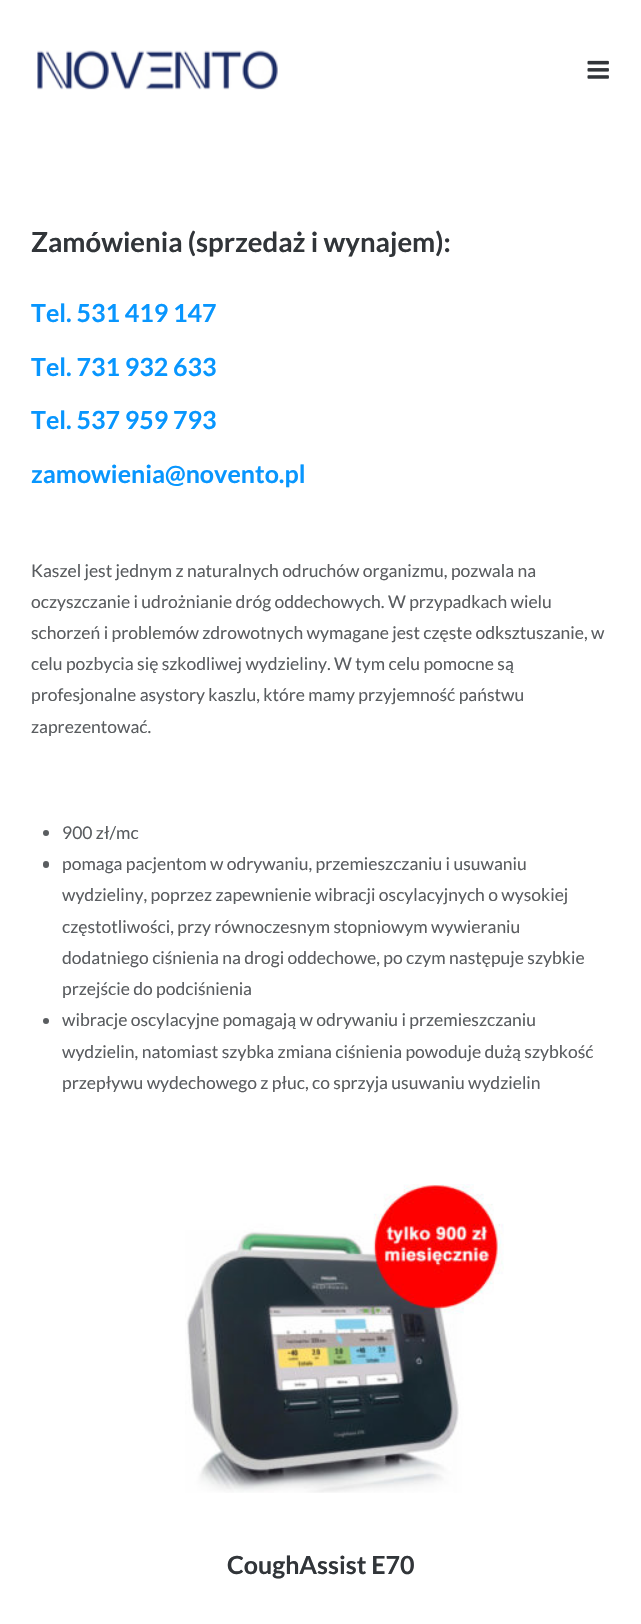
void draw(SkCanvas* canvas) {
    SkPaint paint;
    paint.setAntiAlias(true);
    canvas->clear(0xFFFFFFFF);
    canvas->drawImageRect(SkImages::DeferredFromEncodedData(SkData::MakeFromFileName("img1.png")), SkRect::MakeXYWH(37, 50, 241, 40), SkSamplingOptions());
    canvas->drawImageRect(SkImages::DeferredFromEncodedData(SkData::MakeFromFileName("img2.png")), SkRect::MakeXYWH(587, 60, 22, 19), SkSamplingOptions());
    SkFont font1(fontMgr->matchFamilyStyle("Lato", SkFontStyle::Bold()), 27.5f);
    font1.setSubpixel(true);
    paint.setColor(0xFF313539);
    canvas->drawString("Zamówienia (sprzedaż i wynajem):", 31, 252, font1, paint);
    SkFont font2(fontMgr->matchFamilyStyle("Lato", SkFontStyle::Bold()), 25);
    font2.setSubpixel(true);
    paint.setColor(0xFF0896FE);
    canvas->drawString("Tel. 531 419 147", 31, 322, font2, paint);
    canvas->drawString("Tel. 731 932 633", 31, 376, font2, paint);
    canvas->drawString("Tel. 537 959 793", 31, 429, font2, paint);
    canvas->drawString("zamowienia@novento.pl", 31, 483, font2, paint);
    SkFont font3(fontMgr->matchFamilyStyle("Lato", SkFontStyle::Normal()), 17.5f);
    font3.setSubpixel(true);
    paint.setColor(0xFF5A5D60);
    canvas->drawString("Kaszel jest jednym z naturalnych odruchów organizmu, pozwala na", 31, 577, font3, paint);
    canvas->drawString("oczyszczanie i udrożnianie dróg oddechowych. W przypadkach wielu", 31, 608, font3, paint);
    canvas->drawString("schorzeń i problemów zdrowotnych wymagane jest częste odksztuszanie, w", 31, 639, font3, paint);
    canvas->drawString("celu pozbycia się szkodliwej wydzieliny. W tym celu pomocne są", 31, 670, font3, paint);
    canvas->drawString("profesjonalne asystory kaszlu, które mamy przyjemność państwu", 31, 701, font3, paint);
    canvas->drawString("zaprezentować.", 31, 733, font3, paint);
    canvas->drawCircle(46, 833, 3, paint);
    canvas->drawString("900 zł/mc", 62, 839, font3, paint);
    canvas->drawRoundRect(SkRect::MakeXYWH(43, 861, 6, 7), 3, 3, paint);
    canvas->drawString("pomaga pacjentom w odrywaniu, przemieszczaniu i usuwaniu", 62, 870, font3, paint);
    canvas->drawString("wydzieliny, poprzez zapewnienie wibracji oscylacyjnych o wysokiej", 62, 901, font3, paint);
    canvas->drawString("częstotliwości, przy równoczesnym stopniowym wywieraniu", 62, 933, font3, paint);
    canvas->drawString("dodatniego ciśnienia na drogi oddechowe, po czym następuje szybkie", 62, 964, font3, paint);
    canvas->drawString("przejście do podciśnienia", 62, 995, font3, paint);
    canvas->drawCircle(46, 1021, 3, paint);
    canvas->drawString("wibracje oscylacyjne pomagają w odrywaniu i przemieszczaniu", 62, 1026, font3, paint);
    canvas->drawString("wydzielin, natomiast szybka zmiana ciśnienia powoduje dużą szybkość", 62, 1058, font3, paint);
    canvas->drawString("przepływu wydechowego z płuc, co sprzyja usuwaniu wydzielin", 62, 1089, font3, paint);
    canvas->drawImageRect(SkImages::DeferredFromEncodedData(SkData::MakeFromFileName("img3.png")), SkRect::MakeXYWH(185, 1184, 319, 309), SkSamplingOptions());
    paint.setColor(0xFF313539);
    canvas->drawString("CoughAssist E70", 227, 1574, font2, paint);
}
